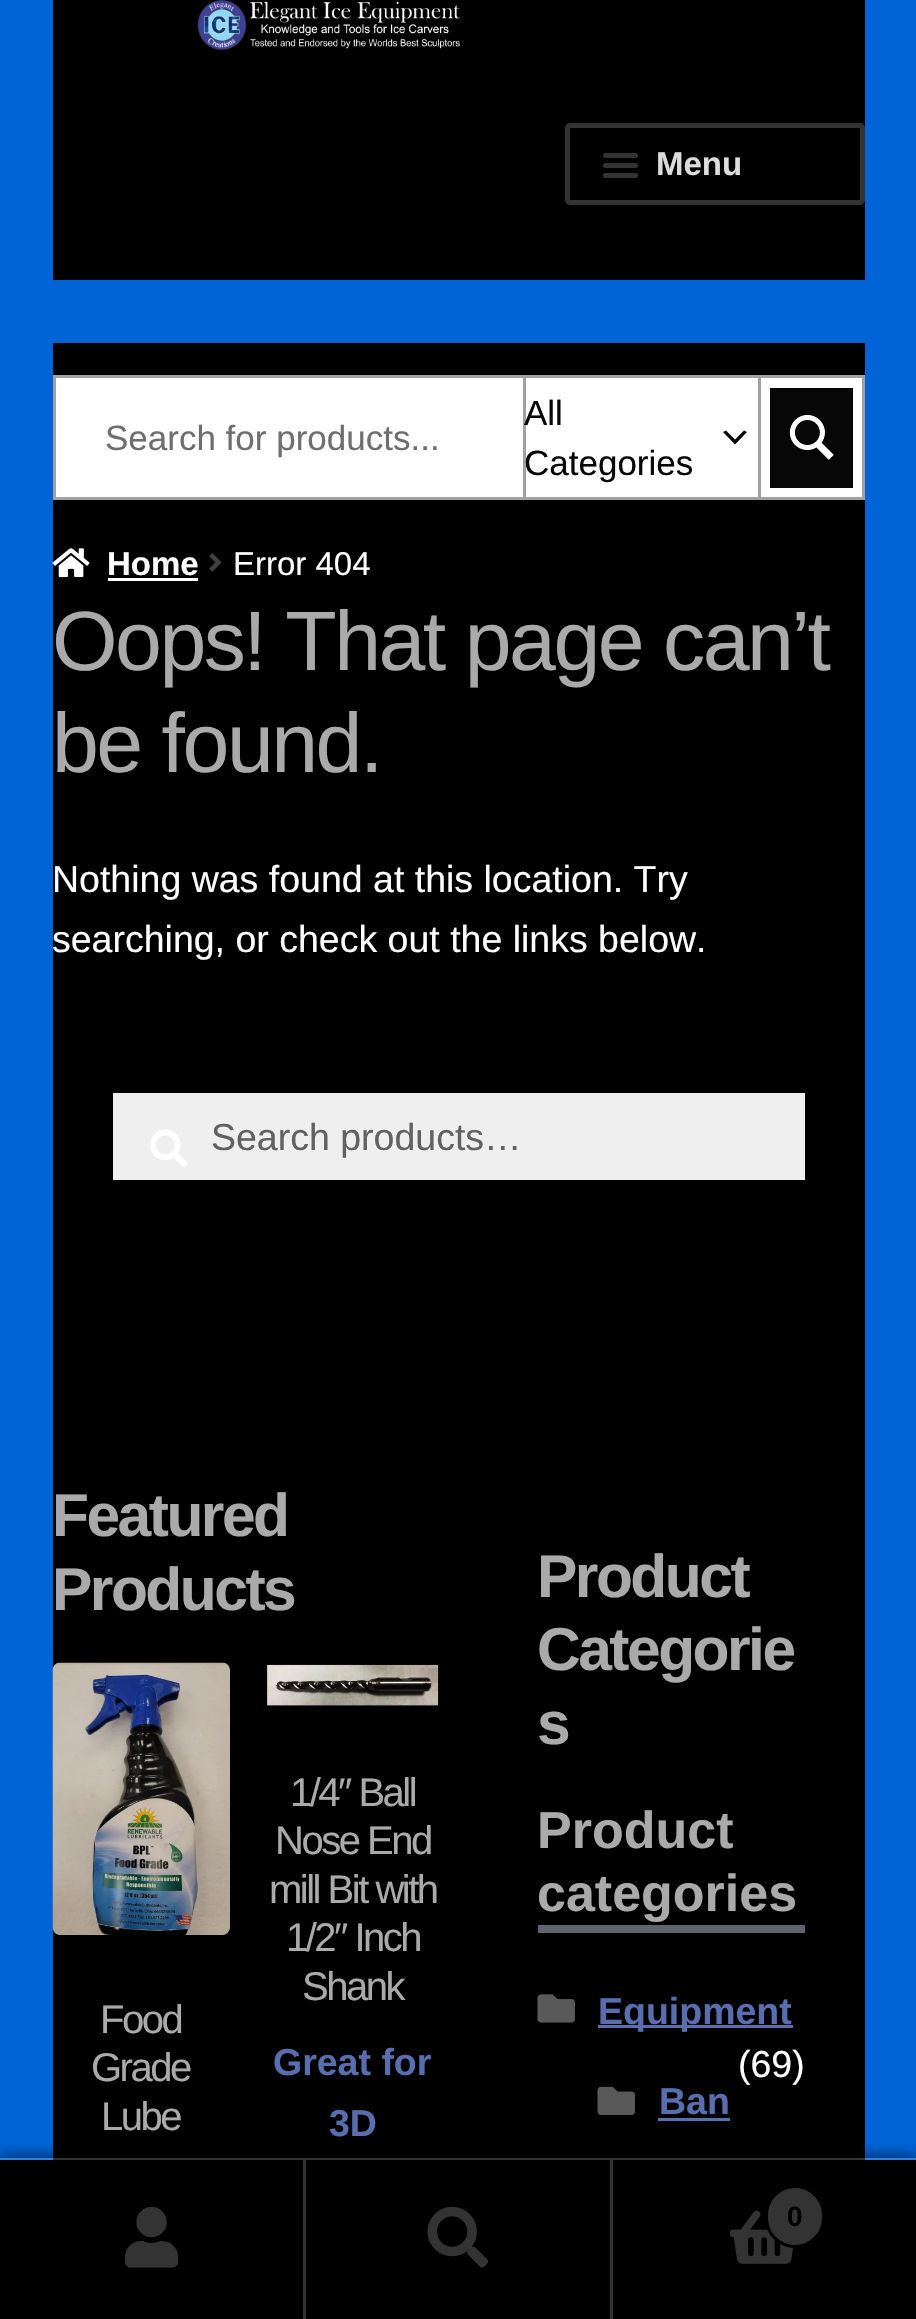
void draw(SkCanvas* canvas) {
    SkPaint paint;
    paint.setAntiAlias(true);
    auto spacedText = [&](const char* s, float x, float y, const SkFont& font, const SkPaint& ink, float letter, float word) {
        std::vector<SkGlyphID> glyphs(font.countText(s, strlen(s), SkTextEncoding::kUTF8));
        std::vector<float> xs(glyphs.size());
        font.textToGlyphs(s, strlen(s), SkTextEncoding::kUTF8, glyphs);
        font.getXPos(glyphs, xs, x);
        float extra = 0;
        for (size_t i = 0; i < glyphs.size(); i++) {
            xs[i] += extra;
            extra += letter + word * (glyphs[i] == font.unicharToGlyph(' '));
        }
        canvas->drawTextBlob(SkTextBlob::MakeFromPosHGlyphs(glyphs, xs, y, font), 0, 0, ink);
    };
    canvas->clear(0xFF0063D6);
    paint.setColor(0xFF000000);
    canvas->drawRect(SkRect::MakeXYWH(53, 0, 812, 280), paint);
    canvas->drawImageRect(SkImages::DeferredFromEncodedData(SkData::MakeFromFileName("img1.png")), SkRect::MakeXYWH(197, 0, 264, 50), SkSamplingOptions());
    paint.setStyle(SkPaint::kStroke_Style);
    paint.setStrokeWidth(5);
    paint.setColor(0xFF333333);
    canvas->drawRoundRect(SkRect::MakeXYWH(567.5f, 125.5f, 295, 77), 2.5f, 2.5f, paint);
    paint.setStyle(SkPaint::kFill_Style);
    canvas->drawRoundRect(SkRect::MakeXYWH(603, 153, 35, 5), 2.5f, 2.5f, paint);
    canvas->drawRoundRect(SkRect::MakeXYWH(603, 163, 35, 5), 2.5f, 2.5f, paint);
    SkFont font1(fontMgr->matchFamilyStyle("Liberation Sans", SkFontStyle::Bold()), 33);
    font1.setSubpixel(true);
    paint.setColor(0xFFDDDDDD);
    canvas->drawString("Menu", 656, 175, font1, paint);
    paint.setColor(0xFF333333);
    canvas->drawRoundRect(SkRect::MakeXYWH(603, 173, 35, 5), 2.5f, 2.5f, paint);
    paint.setColor(0xFF000000);
    canvas->drawRect(SkRect::MakeXYWH(53, 343, 812, 1817), paint);
    paint.setColor(0xFFFFFFFF);
    canvas->drawRect(SkRect::MakeXYWH(54.5f, 376.5f, 809, 122), paint);
    paint.setStyle(SkPaint::kStroke_Style);
    paint.setStrokeWidth(3);
    paint.setColor(0xFFA1A1A1);
    canvas->drawRect(SkRect::MakeXYWH(54.5f, 376.5f, 809, 122), paint);
    SkFont font2(fontMgr->matchFamilyStyle("Liberation Sans", SkFontStyle::Normal()), 35);
    font2.setSubpixel(true);
    paint.setStyle(SkPaint::kFill_Style);
    paint.setColor(0xFF6E6E6E);
    canvas->drawString("Search for products...", 105, 450, font2, paint);
    paint.setColor(0xFFA1A1A1);
    canvas->drawRect(SkRect::MakeXYWH(523, 378, 3, 120), paint);
    canvas->drawRect(SkRect::MakeXYWH(758, 378, 3, 120), paint);
    paint.setColor(0xFF070707);
    canvas->drawString("All", 524, 425, font2, paint);
    canvas->drawString("Categories", 524, 475, font2, paint);
    canvas->drawPath(SkPathBuilder().moveTo(726, 430.5f).lineTo(735, 439.5f).lineTo(744, 430.5f).lineTo(747, 432).lineTo(735, 444.5f).lineTo(723, 432).close().detach(), paint);
    canvas->drawRect(SkRect::MakeXYWH(770, 388, 83, 100), paint);
    canvas->drawImageRect(SkImages::DeferredFromEncodedData(SkData::MakeFromFileName("img2.png")), SkRect::MakeXYWH(789, 415, 45, 45), SkSamplingOptions());
    canvas->drawImageRect(SkImages::DeferredFromEncodedData(SkData::MakeFromFileName("img3.png")), SkRect::MakeXYWH(52, 548, 38, 30), SkSamplingOptions());
    paint.setColor(0xFFFFFFFF);
    canvas->drawString("Home", 107, 575, font1, paint);
    canvas->drawRect(SkRect::MakeXYWH(108, 578, 90, 3), paint);
    canvas->drawImageRect(SkImages::DeferredFromEncodedData(SkData::MakeFromFileName("img4.png")), SkRect::MakeXYWH(209, 553, 12, 19), SkSamplingOptions());
    SkFont font3(fontMgr->matchFamilyStyle("Liberation Sans", SkFontStyle::Normal()), 33);
    font3.setSubpixel(true);
    canvas->drawString("Error 404", 233, 575, font3, paint);
    SkFont font4(fontMgr->matchFamilyStyle("Liberation Sans", SkFontStyle::Normal()), 84.25f);
    font4.setSubpixel(true);
    paint.setColor(0xFFAAAAAA);
    spacedText("Oops! That page can’t", 52, 670, font4, paint, -2.5f, 0);
    spacedText("be found.", 52, 772, font4, paint, -2.5f, 0);
    SkFont font5(fontMgr->matchFamilyStyle("Liberation Sans", SkFontStyle::Normal()), 37.5f);
    font5.setSubpixel(true);
    paint.setColor(0xFFFFFFFF);
    canvas->drawString("Nothing was found at this location. Try", 52, 892, font5, paint);
    canvas->drawString("searching, or check out the links below.", 52, 952, font5, paint);
    paint.setColor(0xFFEFEFEF);
    canvas->drawRect(SkRect::MakeXYWH(113, 1093, 692, 87), paint);
    canvas->drawImageRect(SkImages::DeferredFromEncodedData(SkData::MakeFromFileName("img5.png")), SkRect::MakeXYWH(150, 1129, 38, 38), SkSamplingOptions());
    paint.setColor(0xFF616161);
    canvas->drawString("Search products…", 211, 1150, font5, paint);
    SkFont font6(fontMgr->matchFamilyStyle("Liberation Sans", SkFontStyle::Bold()), 60.5f);
    font6.setSubpixel(true);
    paint.setColor(0xFFAAAAAA);
    spacedText("Featured", 52, 1536, font6, paint, -2.5f, 0);
    spacedText("Products", 52, 1610, font6, paint, -2.5f, 0);
    canvas->drawImageRect(SkImages::DeferredFromEncodedData(SkData::MakeFromFileName("img6.png")), SkRect::MakeXYWH(52, 1662, 178, 273), SkSamplingOptions());
    SkFont font7(fontMgr->matchFamilyStyle("Liberation Sans", SkFontStyle::Normal()), 40);
    font7.setSubpixel(true);
    spacedText("Food", 100, 2033, font7, paint, -2.5f, 0);
    spacedText("Grade", 91, 2081, font7, paint, -2.5f, 0);
    spacedText("Lube", 101, 2130, font7, paint, -2.5f, 0);
    canvas->drawImageRect(SkImages::DeferredFromEncodedData(SkData::MakeFromFileName("img7.png")), SkRect::MakeXYWH(265, 1663, 175, 44), SkSamplingOptions());
    spacedText("1/4″ Ball", 290, 1806, font7, paint, -2.5f, 0);
    spacedText("Nose End", 275, 1854, font7, paint, -2.5f, 0);
    spacedText("mill Bit with", 269, 1903, font7, paint, -2.5f, 0);
    spacedText("1/2″ Inch", 286, 1951, font7, paint, -2.5f, 0);
    spacedText("Shank", 302, 2000, font7, paint, -2.5f, 0);
    SkFont font8(fontMgr->matchFamilyStyle("Liberation Sans", SkFontStyle::Bold()), 37.5f);
    font8.setSubpixel(true);
    paint.setColor(0xFF586EAF);
    canvas->drawString("Great for", 273, 2075, font8, paint);
    canvas->drawString("3D", 329, 2136, font8, paint);
    paint.setColor(0xFFAAAAAA);
    spacedText("Product", 537, 1597, font6, paint, -2.5f, 0);
    spacedText("Categorie", 537, 1670, font6, paint, -2.5f, 0);
    spacedText("s", 537, 1744, font6, paint, -2.5f, 0);
    paint.setColor(0xFF60646C);
    canvas->drawRect(SkRect::MakeXYWH(538, 1925, 267, 8), paint);
    SkFont font9(fontMgr->matchFamilyStyle("Liberation Sans", SkFontStyle::Bold()), 52);
    font9.setSubpixel(true);
    paint.setColor(0xFFAAAAAA);
    canvas->drawString("Product", 537, 1848, font9, paint);
    canvas->drawString("categories", 537, 1911, font9, paint);
    canvas->drawImageRect(SkImages::DeferredFromEncodedData(SkData::MakeFromFileName("img8.png")), SkRect::MakeXYWH(537, 1994, 38, 29), SkSamplingOptions());
    paint.setColor(0xFF586EAF);
    canvas->drawRect(SkRect::MakeXYWH(598, 2025, 195, 3), paint);
    canvas->drawString("Equipment", 598, 2024, font8, paint);
    paint.setColor(0xFFFFFFFF);
    canvas->drawString("(69)", 738, 2077, font5, paint);
    canvas->drawImageRect(SkImages::DeferredFromEncodedData(SkData::MakeFromFileName("img9.png")), SkRect::MakeXYWH(597, 2086, 38, 29), SkSamplingOptions());
    paint.setColor(0xFF586EAF);
    canvas->drawString("Ban", 659, 2114, font8, paint);
    canvas->drawRect(SkRect::MakeXYWH(658, 2118, 72, 3), paint);
    canvas->save();
    canvas->clipRect(SkRect::MakeXYWH(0, 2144, 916, 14));
    paint.setColor(0xB3000000);
    paint.setMaskFilter(SkMaskFilter::MakeBlur(kNormal_SkBlurStyle, 7.5f));
    canvas->drawRect(SkRect::MakeXYWH(0, 2158, 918, 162), paint);
    paint.setMaskFilter(nullptr);
    canvas->restore();
    paint.setColor(0x33FFFFFF);
    canvas->drawRect(SkRect::MakeXYWH(0, 2158, 916, 2), paint);
    paint.setColor(0xFF000000);
    canvas->drawRect(SkRect::MakeXYWH(0, 2160, 303, 159), paint);
    paint.setColor(0xFF333333);
    canvas->drawRect(SkRect::MakeXYWH(303, 2160, 3, 159), paint);
    canvas->drawImageRect(SkImages::DeferredFromEncodedData(SkData::MakeFromFileName("img10.png")), SkRect::MakeXYWH(125, 2206, 54, 62), SkSamplingOptions());
    paint.setColor(0xFF000000);
    canvas->drawRect(SkRect::MakeXYWH(306, 2160, 304, 159), paint);
    paint.setColor(0xFF333333);
    canvas->drawRect(SkRect::MakeXYWH(610, 2160, 3, 159), paint);
    canvas->drawImageRect(SkImages::DeferredFromEncodedData(SkData::MakeFromFileName("img11.png")), SkRect::MakeXYWH(427, 2206, 62, 62), SkSamplingOptions());
    paint.setColor(0xFF000000);
    canvas->drawRect(SkRect::MakeXYWH(613, 2160, 303, 159), paint);
    canvas->drawImageRect(SkImages::DeferredFromEncodedData(SkData::MakeFromFileName("img12.png")), SkRect::MakeXYWH(730, 2210, 64, 54), SkSamplingOptions());
    paint.setColor(0xFF333333);
    canvas->drawRoundRect(SkRect::MakeXYWH(766.5f, 2186.5f, 57, 60), 28.5f, 28.5f, paint);
    paint.setStyle(SkPaint::kStroke_Style);
    paint.setColor(0xFF000000);
    canvas->drawRoundRect(SkRect::MakeXYWH(766.5f, 2186.5f, 57, 60), 28.5f, 28.5f, paint);
    SkFont font10(fontMgr->matchFamilyStyle("Liberation Sans", SkFontStyle::Bold()), 28);
    font10.setSubpixel(true);
    paint.setStyle(SkPaint::kFill_Style);
    canvas->drawString("0", 787, 2226, font10, paint);
}
